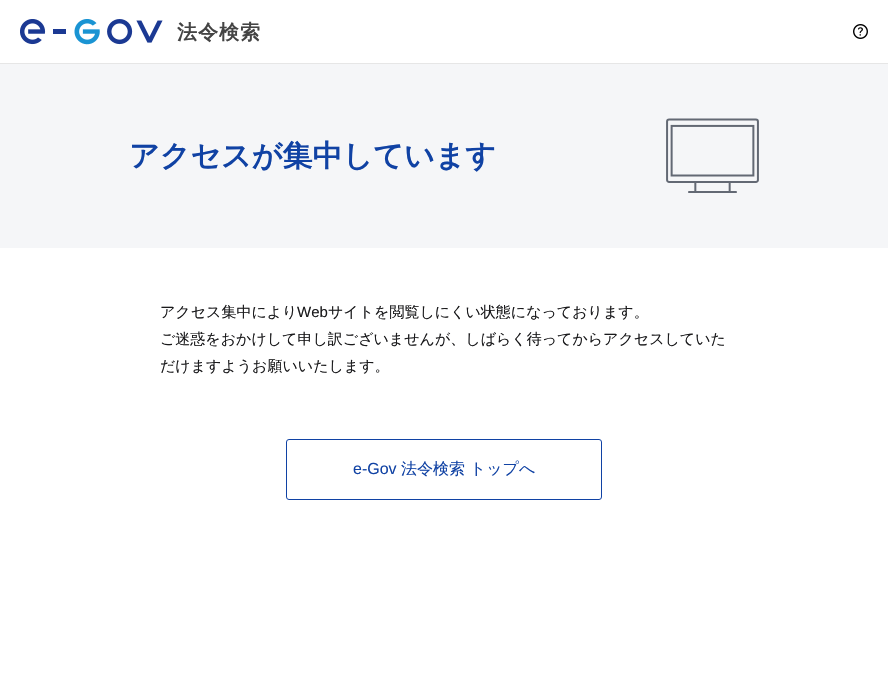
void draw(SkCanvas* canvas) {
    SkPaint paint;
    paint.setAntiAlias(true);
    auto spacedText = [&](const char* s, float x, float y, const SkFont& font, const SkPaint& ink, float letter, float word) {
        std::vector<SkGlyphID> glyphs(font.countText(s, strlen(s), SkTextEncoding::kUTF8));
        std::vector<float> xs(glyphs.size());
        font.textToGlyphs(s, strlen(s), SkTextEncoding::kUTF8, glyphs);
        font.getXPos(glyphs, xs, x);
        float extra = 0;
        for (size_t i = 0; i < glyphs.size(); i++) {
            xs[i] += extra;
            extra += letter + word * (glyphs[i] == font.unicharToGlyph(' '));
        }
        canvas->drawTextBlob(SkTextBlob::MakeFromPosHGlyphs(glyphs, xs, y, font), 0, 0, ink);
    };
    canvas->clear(0xFFFFFFFF);
    paint.setColor(0xFFE6E6E6);
    canvas->drawRect(SkRect::MakeXYWH(0, 63, 888, 1), paint);
    canvas->drawImageRect(SkImages::DeferredFromEncodedData(SkData::MakeFromFileName("img1.png")), SkRect::MakeXYWH(20, 19, 143, 26), SkSamplingOptions());
    SkFont font1(fontMgr->matchFamilyStyle("WenQuanYi Zen Hei", SkFontStyle::Bold()), 20);
    font1.setSubpixel(true);
    paint.setColor(0xFF444444);
    spacedText("法令検索", 177, 39, font1, paint, 1, 0);
    canvas->drawImageRect(SkImages::DeferredFromEncodedData(SkData::MakeFromFileName("img2.png")), SkRect::MakeXYWH(853, 24, 15, 15), SkSamplingOptions());
    paint.setColor(0xFFF5F6F8);
    canvas->drawRect(SkRect::MakeXYWH(0, 64, 888, 184), paint);
    SkFont font2(fontMgr->matchFamilyStyle("WenQuanYi Zen Hei", SkFontStyle::Bold()), 30);
    font2.setSubpixel(true);
    paint.setColor(0xFF1042A4);
    canvas->drawString("アクセスが集中しています", 129, 166, font2, paint);
    canvas->drawImageRect(SkImages::DeferredFromEncodedData(SkData::MakeFromFileName("img3.png")), SkRect::MakeXYWH(666, 118, 93, 75), SkSamplingOptions());
    SkFont font3(fontMgr->matchFamilyStyle("WenQuanYi Zen Hei", SkFontStyle(500, SkFontStyle::kNormal_Width, SkFontStyle::kUpright_Slant)), 15);
    font3.setSubpixel(true);
    paint.setColor(0xFF1A1A1C);
    canvas->drawString("アクセス集中により", 160, 317, font3, paint);
    SkFont font4(fontMgr->matchFamilyStyle("Liberation Sans", SkFontStyle::Normal()), 15);
    font4.setSubpixel(true);
    canvas->drawString("Web", 297, 317, font4, paint);
    canvas->drawString("サイトを閲覧しにくい状態になっております。", 328, 317, font3, paint);
    canvas->drawString("ご迷惑をおかけして申し訳ございませんが、しばらく待ってからアクセスしていた", 160, 344, font3, paint);
    canvas->drawString("だけますようお願いいたします。", 160, 371, font3, paint);
    paint.setStyle(SkPaint::kStroke_Style);
    paint.setStrokeWidth(1);
    paint.setColor(0xFF1042A4);
    canvas->drawRoundRect(SkRect::MakeXYWH(286.5f, 439.5f, 315, 60), 2.5f, 2.5f, paint);
    SkFont font5(fontMgr->matchFamilyStyle("Liberation Sans", SkFontStyle::Normal()), 16);
    font5.setSubpixel(true);
    paint.setStyle(SkPaint::kFill_Style);
    canvas->drawString("e-Gov", 353, 474, font5, paint);
    SkFont font6(fontMgr->matchFamilyStyle("WenQuanYi Zen Hei", SkFontStyle(500, SkFontStyle::kNormal_Width, SkFontStyle::kUpright_Slant)), 16);
    font6.setSubpixel(true);
    canvas->drawString("法令検索 トップへ", 401, 474, font6, paint);
}
